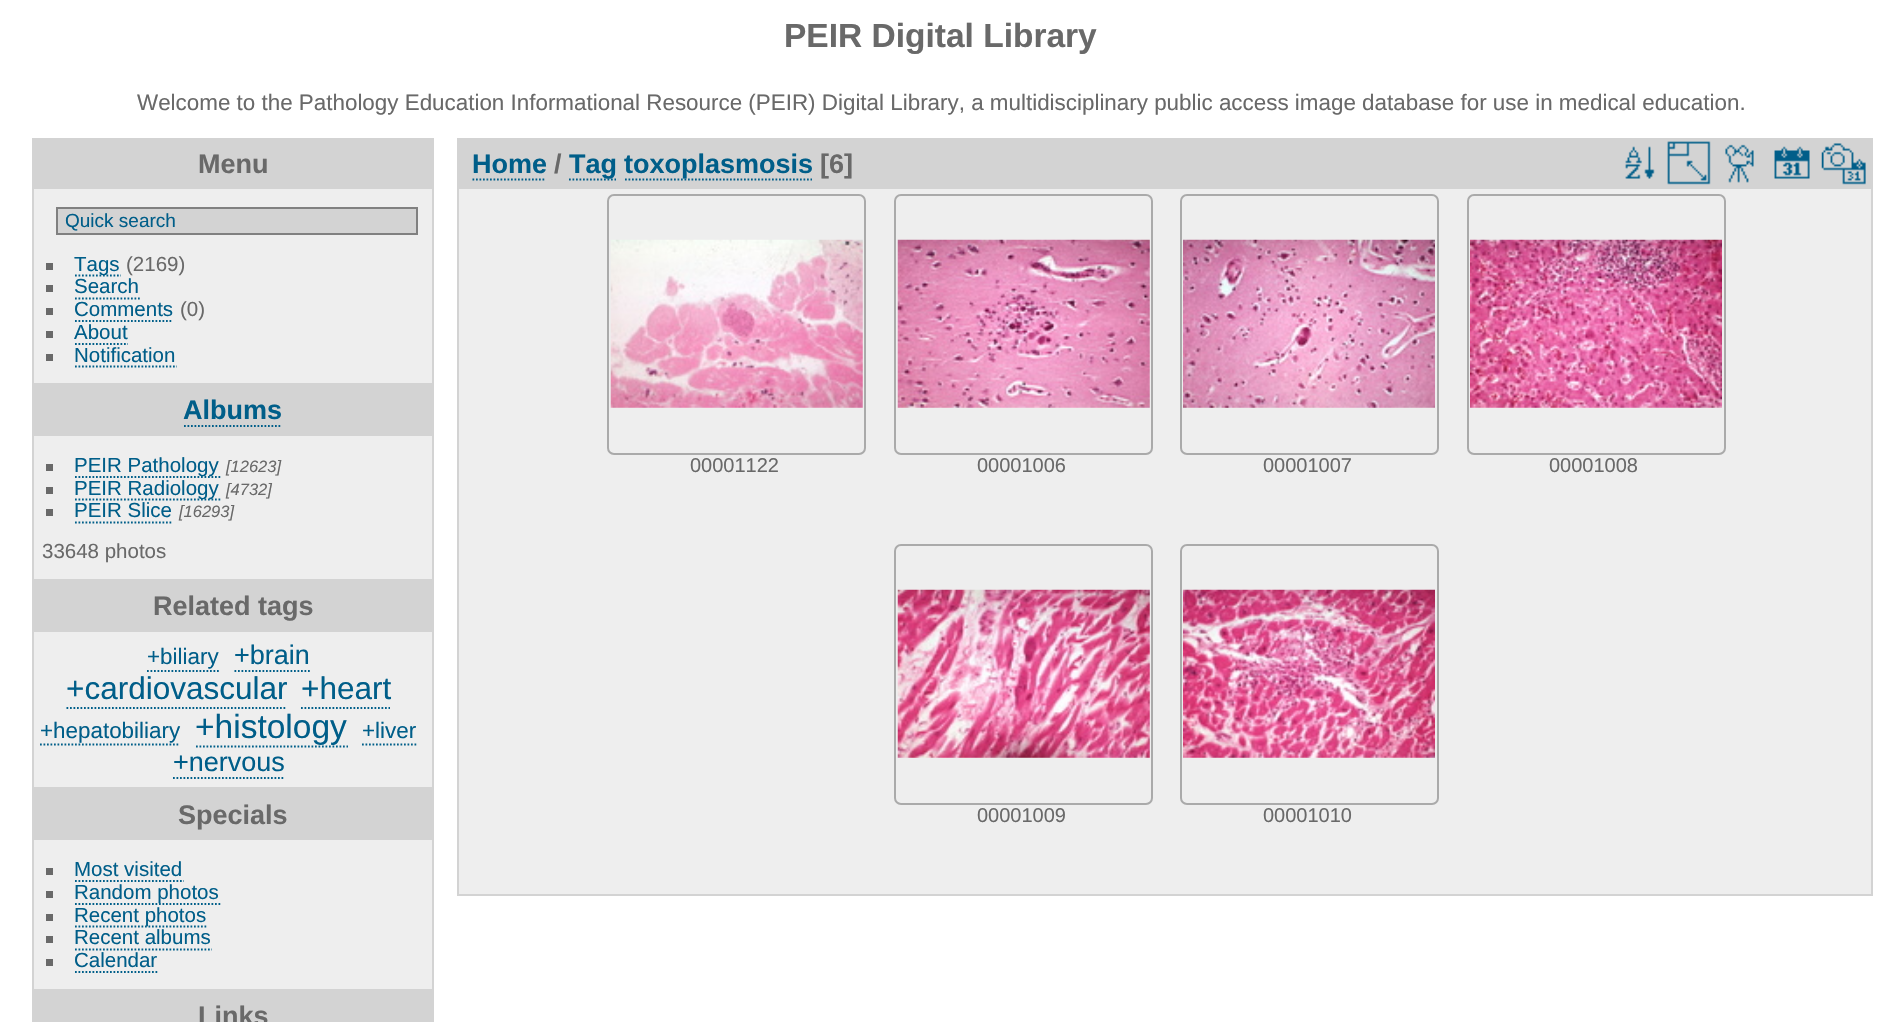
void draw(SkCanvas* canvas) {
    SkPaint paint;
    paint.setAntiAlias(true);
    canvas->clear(0xFFFFFFFF);
    SkFont font1(fontMgr->matchFamilyStyle("Liberation Sans", SkFontStyle::Bold()), 33.5f);
    font1.setSubpixel(true);
    paint.setColor(0xFF696969);
    canvas->drawString("PEIR Digital Library", 784, 47, font1, paint);
    SkFont font2(fontMgr->matchFamilyStyle("Liberation Sans", SkFontStyle::Normal()), 22.4f);
    font2.setSubpixel(true);
    canvas->drawString("Welcome to the Pathology Education Informational Resource (PEIR) Digital Library, a multidisciplinary public access image database for use in medical education.", 137, 110, font2, paint);
    paint.setColor(0xFFEEEEEE);
    canvas->drawRect(SkRect::MakeXYWH(34, 189, 398, 194), paint);
    paint.setStyle(SkPaint::kStroke_Style);
    paint.setStrokeWidth(2);
    paint.setColor(0xFFD3D3D3);
    canvas->drawRect(SkRect::MakeXYWH(33, 139, 400, 245), paint);
    paint.setStyle(SkPaint::kFill_Style);
    canvas->drawRect(SkRect::MakeXYWH(34, 140, 398, 49), paint);
    SkFont font3(fontMgr->matchFamilyStyle("Liberation Sans", SkFontStyle::Bold()), 27);
    font3.setSubpixel(true);
    paint.setColor(0xFF696969);
    canvas->drawString("Menu", 198, 173, font3, paint);
    paint.setColor(0xFFD3D3D3);
    canvas->drawRect(SkRect::MakeXYWH(57, 208, 360, 26), paint);
    paint.setStyle(SkPaint::kStroke_Style);
    paint.setColor(0xFF808080);
    canvas->drawRect(SkRect::MakeXYWH(57, 208, 360, 26), paint);
    SkFont font4(fontMgr->matchFamilyStyle("Liberation Sans", SkFontStyle::Normal()), 19);
    font4.setSubpixel(true);
    paint.setStyle(SkPaint::kFill_Style);
    paint.setColor(0xFF005E89);
    canvas->drawString("Quick search", 65, 227, font4, paint);
    paint.setColor(0xFF696969);
    canvas->drawRect(SkRect::MakeXYWH(46, 263, 7, 7), paint);
    paint.setStyle(SkPaint::kStroke_Style);
    paint.setStrokeWidth(1.8f);
    paint.setColor(0xFF005E89);
    paint.setPathEffect(SkDashPathEffect::Make({{1.75f, 1.75f}}, 0));
    canvas->drawPath(SkPathBuilder().moveTo(75, 275.5f).lineTo(121, 275.5f).detach(), paint);
    paint.setPathEffect(nullptr);
    SkFont font5(fontMgr->matchFamilyStyle("Liberation Sans", SkFontStyle::Normal()), 20.5f);
    font5.setSubpixel(true);
    paint.setStyle(SkPaint::kFill_Style);
    canvas->drawString("Tags", 74, 271, font5, paint);
    paint.setColor(0xFF696969);
    canvas->drawString("(2169)", 126, 271, font5, paint);
    canvas->drawRect(SkRect::MakeXYWH(46, 285, 7, 7), paint);
    paint.setColor(0xFF005E89);
    canvas->drawString("Search", 74, 293, font5, paint);
    paint.setStyle(SkPaint::kStroke_Style);
    paint.setPathEffect(SkDashPathEffect::Make({{1.75f, 1.75f}}, 0));
    canvas->drawPath(SkPathBuilder().moveTo(75, 298.5f).lineTo(140, 298.5f).detach(), paint);
    paint.setPathEffect(nullptr);
    paint.setStyle(SkPaint::kFill_Style);
    paint.setColor(0xFF696969);
    canvas->drawRect(SkRect::MakeXYWH(46, 308, 7, 7), paint);
    paint.setColor(0xFF005E89);
    canvas->drawString("Comments", 74, 316, font5, paint);
    paint.setStyle(SkPaint::kStroke_Style);
    paint.setPathEffect(SkDashPathEffect::Make({{1.75f, 1.75f}}, 0));
    canvas->drawPath(SkPathBuilder().moveTo(75, 321).lineTo(173, 321).detach(), paint);
    paint.setPathEffect(nullptr);
    paint.setStyle(SkPaint::kFill_Style);
    paint.setColor(0xFF696969);
    canvas->drawString("(0)", 180, 316, font5, paint);
    canvas->drawRect(SkRect::MakeXYWH(46, 331, 7, 7), paint);
    paint.setColor(0xFF005E89);
    canvas->drawString("About", 74, 339, font5, paint);
    paint.setStyle(SkPaint::kStroke_Style);
    paint.setPathEffect(SkDashPathEffect::Make({{1.75f, 1.75f}}, 0));
    canvas->drawPath(SkPathBuilder().moveTo(75, 344).lineTo(128, 344).detach(), paint);
    paint.setPathEffect(nullptr);
    paint.setStyle(SkPaint::kFill_Style);
    paint.setColor(0xFF696969);
    canvas->drawRect(SkRect::MakeXYWH(46, 354, 7, 7), paint);
    paint.setColor(0xFF005E89);
    canvas->drawString("Notification", 74, 362, font5, paint);
    paint.setStyle(SkPaint::kStroke_Style);
    paint.setPathEffect(SkDashPathEffect::Make({{1.75f, 1.75f}}, 0));
    canvas->drawPath(SkPathBuilder().moveTo(75, 366.5f).lineTo(177, 366.5f).detach(), paint);
    paint.setPathEffect(nullptr);
    paint.setStyle(SkPaint::kFill_Style);
    paint.setColor(0xFFEEEEEE);
    canvas->drawRect(SkRect::MakeXYWH(34, 436, 398, 143), paint);
    paint.setStyle(SkPaint::kStroke_Style);
    paint.setStrokeWidth(2);
    paint.setColor(0xFFD3D3D3);
    canvas->drawRect(SkRect::MakeXYWH(33, 386, 400, 194), paint);
    paint.setStyle(SkPaint::kFill_Style);
    canvas->drawRect(SkRect::MakeXYWH(34, 387, 398, 49), paint);
    paint.setColor(0xFF005E89);
    canvas->drawString("Albums", 183, 419, font3, paint);
    paint.setStyle(SkPaint::kStroke_Style);
    paint.setStrokeWidth(1.8f);
    paint.setPathEffect(SkDashPathEffect::Make({{1.75f, 1.75f}}, 0));
    canvas->drawPath(SkPathBuilder().moveTo(184, 426).lineTo(282, 426).detach(), paint);
    paint.setPathEffect(nullptr);
    paint.setStyle(SkPaint::kFill_Style);
    paint.setColor(0xFF696969);
    canvas->drawRect(SkRect::MakeXYWH(46, 464, 7, 7), paint);
    paint.setStyle(SkPaint::kStroke_Style);
    paint.setColor(0xFF005E89);
    paint.setPathEffect(SkDashPathEffect::Make({{1.75f, 1.75f}}, 0));
    canvas->drawPath(SkPathBuilder().moveTo(75, 477).lineTo(220.5f, 477).detach(), paint);
    paint.setPathEffect(nullptr);
    paint.setStyle(SkPaint::kFill_Style);
    canvas->drawString("PEIR Pathology", 74, 472, font5, paint);
    SkFont font6(fontMgr->matchFamilyStyle("Liberation Sans", SkFontStyle::Italic()), 16.5f);
    font6.setSubpixel(true);
    paint.setColor(0xFF696969);
    canvas->drawString("[12623]", 226, 472, font6, paint);
    canvas->drawRect(SkRect::MakeXYWH(46, 487, 7, 7), paint);
    paint.setStyle(SkPaint::kStroke_Style);
    paint.setColor(0xFF005E89);
    paint.setPathEffect(SkDashPathEffect::Make({{1.75f, 1.75f}}, 0));
    canvas->drawPath(SkPathBuilder().moveTo(75, 499.5f).lineTo(220.5f, 499.5f).detach(), paint);
    paint.setPathEffect(nullptr);
    paint.setStyle(SkPaint::kFill_Style);
    canvas->drawString("PEIR Radiology", 74, 495, font5, paint);
    paint.setColor(0xFF696969);
    canvas->drawString("[4732]", 226, 495, font6, paint);
    canvas->drawRect(SkRect::MakeXYWH(46, 509, 7, 7), paint);
    paint.setColor(0xFF005E89);
    canvas->drawString("PEIR Slice", 74, 517, font5, paint);
    paint.setStyle(SkPaint::kStroke_Style);
    paint.setPathEffect(SkDashPathEffect::Make({{1.75f, 1.75f}}, 0));
    canvas->drawPath(SkPathBuilder().moveTo(75, 522.5f).lineTo(173, 522.5f).detach(), paint);
    paint.setPathEffect(nullptr);
    paint.setStyle(SkPaint::kFill_Style);
    paint.setColor(0xFF696969);
    canvas->drawString("[16293]", 179, 517, font6, paint);
    canvas->drawString("33648 photos", 42, 558, font5, paint);
    paint.setColor(0xFFEEEEEE);
    canvas->drawRect(SkRect::MakeXYWH(34, 632, 398, 155), paint);
    paint.setStyle(SkPaint::kStroke_Style);
    paint.setStrokeWidth(2);
    paint.setColor(0xFFD3D3D3);
    canvas->drawRect(SkRect::MakeXYWH(33, 582, 400, 206), paint);
    paint.setStyle(SkPaint::kFill_Style);
    canvas->drawRect(SkRect::MakeXYWH(34, 583, 398, 49), paint);
    paint.setColor(0xFF696969);
    canvas->drawString("Related tags", 153, 615, font3, paint);
    paint.setColor(0xFF005E89);
    canvas->drawString("+biliary", 147, 664, font2, paint);
    paint.setStyle(SkPaint::kStroke_Style);
    paint.setStrokeWidth(1.8f);
    paint.setPathEffect(SkDashPathEffect::Make({{1.75f, 1.75f}}, 0));
    canvas->drawPath(SkPathBuilder().moveTo(147, 671).lineTo(219, 671).detach(), paint);
    paint.setPathEffect(nullptr);
    SkFont font7(fontMgr->matchFamilyStyle("Liberation Sans", SkFontStyle::Normal()), 27);
    font7.setSubpixel(true);
    paint.setStyle(SkPaint::kFill_Style);
    canvas->drawString("+brain", 234, 664, font7, paint);
    paint.setStyle(SkPaint::kStroke_Style);
    paint.setPathEffect(SkDashPathEffect::Make({{1.75f, 1.75f}}, 0));
    canvas->drawPath(SkPathBuilder().moveTo(234.5f, 671).lineTo(310, 671).detach(), paint);
    paint.setPathEffect(nullptr);
    SkFont font8(fontMgr->matchFamilyStyle("Liberation Sans", SkFontStyle::Normal()), 31.5f);
    font8.setSubpixel(true);
    paint.setStyle(SkPaint::kFill_Style);
    canvas->drawString("+cardiovascular", 66, 699, font8, paint);
    paint.setStyle(SkPaint::kStroke_Style);
    paint.setPathEffect(SkDashPathEffect::Make({{1.75f, 1.75f}}, 0));
    canvas->drawPath(SkPathBuilder().moveTo(66.5f, 708).lineTo(287, 708).detach(), paint);
    paint.setPathEffect(nullptr);
    paint.setStyle(SkPaint::kFill_Style);
    canvas->drawString("+heart", 301, 699, font8, paint);
    paint.setStyle(SkPaint::kStroke_Style);
    paint.setPathEffect(SkDashPathEffect::Make({{1.75f, 1.75f}}, 0));
    canvas->drawPath(SkPathBuilder().moveTo(301, 708).lineTo(390, 708).detach(), paint);
    paint.setPathEffect(nullptr);
    paint.setStyle(SkPaint::kFill_Style);
    canvas->drawString("+hepatobiliary", 40, 738, font2, paint);
    paint.setStyle(SkPaint::kStroke_Style);
    paint.setPathEffect(SkDashPathEffect::Make({{1.75f, 1.75f}}, 0));
    canvas->drawPath(SkPathBuilder().moveTo(40, 744.5f).lineTo(180, 744.5f).detach(), paint);
    paint.setPathEffect(nullptr);
    SkFont font9(fontMgr->matchFamilyStyle("Liberation Sans", SkFontStyle::Normal()), 33.5f);
    font9.setSubpixel(true);
    paint.setStyle(SkPaint::kFill_Style);
    canvas->drawString("+histology", 195, 738, font9, paint);
    paint.setStyle(SkPaint::kStroke_Style);
    paint.setPathEffect(SkDashPathEffect::Make({{1.75f, 1.75f}}, 0));
    canvas->drawPath(SkPathBuilder().moveTo(196, 746.5f).lineTo(348, 746.5f).detach(), paint);
    paint.setPathEffect(nullptr);
    paint.setStyle(SkPaint::kFill_Style);
    canvas->drawString("+liver", 362, 738, font2, paint);
    paint.setStyle(SkPaint::kStroke_Style);
    paint.setPathEffect(SkDashPathEffect::Make({{1.75f, 1.75f}}, 0));
    canvas->drawPath(SkPathBuilder().moveTo(362, 744.5f).lineTo(416.5f, 744.5f).detach(), paint);
    paint.setPathEffect(nullptr);
    paint.setStyle(SkPaint::kFill_Style);
    canvas->drawString("+nervous", 173, 771, font7, paint);
    paint.setStyle(SkPaint::kStroke_Style);
    paint.setPathEffect(SkDashPathEffect::Make({{1.75f, 1.75f}}, 0));
    canvas->drawPath(SkPathBuilder().moveTo(173, 778).lineTo(283.5f, 778).detach(), paint);
    paint.setPathEffect(nullptr);
    paint.setStyle(SkPaint::kFill_Style);
    paint.setColor(0xFFEEEEEE);
    canvas->drawRect(SkRect::MakeXYWH(34, 840, 398, 149), paint);
    paint.setStyle(SkPaint::kStroke_Style);
    paint.setStrokeWidth(2);
    paint.setColor(0xFFD3D3D3);
    canvas->drawRect(SkRect::MakeXYWH(33, 790, 400, 200), paint);
    paint.setStyle(SkPaint::kFill_Style);
    canvas->drawRect(SkRect::MakeXYWH(34, 791, 398, 49), paint);
    paint.setColor(0xFF696969);
    canvas->drawString("Specials", 178, 824, font3, paint);
    canvas->drawRect(SkRect::MakeXYWH(46, 868, 7, 7), paint);
    paint.setColor(0xFF005E89);
    canvas->drawString("Most visited", 74, 876, font5, paint);
    paint.setStyle(SkPaint::kStroke_Style);
    paint.setStrokeWidth(1.8f);
    paint.setPathEffect(SkDashPathEffect::Make({{1.75f, 1.75f}}, 0));
    canvas->drawPath(SkPathBuilder().moveTo(75, 881).lineTo(184, 881).detach(), paint);
    paint.setPathEffect(nullptr);
    paint.setStyle(SkPaint::kFill_Style);
    paint.setColor(0xFF696969);
    canvas->drawRect(SkRect::MakeXYWH(46, 891, 7, 7), paint);
    paint.setStyle(SkPaint::kStroke_Style);
    paint.setColor(0xFF005E89);
    paint.setPathEffect(SkDashPathEffect::Make({{1.75f, 1.75f}}, 0));
    canvas->drawPath(SkPathBuilder().moveTo(75, 904).lineTo(220.5f, 904).detach(), paint);
    paint.setPathEffect(nullptr);
    paint.setStyle(SkPaint::kFill_Style);
    canvas->drawString("Random photos", 74, 899, font5, paint);
    paint.setColor(0xFF696969);
    canvas->drawRect(SkRect::MakeXYWH(46, 914, 7, 7), paint);
    paint.setStyle(SkPaint::kStroke_Style);
    paint.setColor(0xFF005E89);
    paint.setPathEffect(SkDashPathEffect::Make({{1.75f, 1.75f}}, 0));
    canvas->drawPath(SkPathBuilder().moveTo(75, 926.5f).lineTo(206.5f, 926.5f).detach(), paint);
    paint.setPathEffect(nullptr);
    paint.setStyle(SkPaint::kFill_Style);
    canvas->drawString("Recent photos", 74, 922, font5, paint);
    paint.setColor(0xFF696969);
    canvas->drawRect(SkRect::MakeXYWH(46, 936, 7, 7), paint);
    paint.setColor(0xFF005E89);
    canvas->drawString("Recent albums", 74, 944, font5, paint);
    paint.setStyle(SkPaint::kStroke_Style);
    paint.setPathEffect(SkDashPathEffect::Make({{1.75f, 1.75f}}, 0));
    canvas->drawPath(SkPathBuilder().moveTo(75, 949.5f).lineTo(212, 949.5f).detach(), paint);
    paint.setPathEffect(nullptr);
    paint.setStyle(SkPaint::kFill_Style);
    paint.setColor(0xFF696969);
    canvas->drawRect(SkRect::MakeXYWH(46, 959, 7, 7), paint);
    paint.setColor(0xFF005E89);
    canvas->drawString("Calendar", 74, 967, font5, paint);
    paint.setStyle(SkPaint::kStroke_Style);
    paint.setPathEffect(SkDashPathEffect::Make({{1.75f, 1.75f}}, 0));
    canvas->drawPath(SkPathBuilder().moveTo(75, 972).lineTo(157.5f, 972).detach(), paint);
    paint.setPathEffect(nullptr);
    paint.setStrokeWidth(2);
    paint.setColor(0xFFD3D3D3);
    canvas->drawRect(SkRect::MakeXYWH(33, 992, 400, 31), paint);
    paint.setStyle(SkPaint::kFill_Style);
    canvas->drawRect(SkRect::MakeXYWH(34, 993, 398, 29), paint);
    paint.setColor(0xFF696969);
    canvas->drawString("Links", 198, 1025, font3, paint);
    paint.setColor(0xFFEEEEEE);
    canvas->drawRect(SkRect::MakeXYWH(459, 189, 1412, 705), paint);
    paint.setStyle(SkPaint::kStroke_Style);
    paint.setColor(0xFFD3D3D3);
    canvas->drawRect(SkRect::MakeXYWH(458, 139, 1414, 756), paint);
    paint.setStyle(SkPaint::kFill_Style);
    canvas->drawRect(SkRect::MakeXYWH(459, 140, 1412, 49), paint);
    paint.setColor(0xFF005E89);
    canvas->drawString("Home", 472, 173, font3, paint);
    paint.setStyle(SkPaint::kStroke_Style);
    paint.setStrokeWidth(1.8f);
    paint.setPathEffect(SkDashPathEffect::Make({{1.75f, 1.75f}}, 0));
    canvas->drawPath(SkPathBuilder().moveTo(472.5f, 179.5f).lineTo(546, 179.5f).detach(), paint);
    paint.setPathEffect(nullptr);
    paint.setStyle(SkPaint::kFill_Style);
    paint.setColor(0xFF696969);
    canvas->drawString("/", 554, 173, font3, paint);
    paint.setStyle(SkPaint::kStroke_Style);
    paint.setColor(0xFF005E89);
    paint.setPathEffect(SkDashPathEffect::Make({{1.75f, 1.75f}}, 0));
    canvas->drawPath(SkPathBuilder().moveTo(569, 179.5f).lineTo(616, 179.5f).detach(), paint);
    paint.setPathEffect(nullptr);
    paint.setStyle(SkPaint::kFill_Style);
    canvas->drawString("Tag", 569, 173, font3, paint);
    paint.setStyle(SkPaint::kStroke_Style);
    paint.setPathEffect(SkDashPathEffect::Make({{1.75f, 1.75f}}, 0));
    canvas->drawPath(SkPathBuilder().moveTo(625, 179.5f).lineTo(812, 179.5f).detach(), paint);
    paint.setPathEffect(nullptr);
    paint.setStyle(SkPaint::kFill_Style);
    canvas->drawString("toxoplasmosis", 624, 173, font3, paint);
    paint.setColor(0xFF696969);
    canvas->drawString("[6]", 820, 173, font3, paint);
    canvas->drawImageRect(SkImages::DeferredFromEncodedData(SkData::MakeFromFileName("img1.png")), SkRect::MakeXYWH(1625, 146, 30, 33), SkSamplingOptions());
    canvas->drawImageRect(SkImages::DeferredFromEncodedData(SkData::MakeFromFileName("img2.png")), SkRect::MakeXYWH(1667, 141, 44, 44), SkSamplingOptions());
    canvas->drawImageRect(SkImages::DeferredFromEncodedData(SkData::MakeFromFileName("img3.png")), SkRect::MakeXYWH(1725, 144, 29, 39), SkSamplingOptions());
    canvas->drawImageRect(SkImages::DeferredFromEncodedData(SkData::MakeFromFileName("img4.png")), SkRect::MakeXYWH(1774, 146, 36, 33), SkSamplingOptions());
    canvas->drawImageRect(SkImages::DeferredFromEncodedData(SkData::MakeFromFileName("img5.png")), SkRect::MakeXYWH(1821, 143, 45, 42), SkSamplingOptions());
    paint.setStyle(SkPaint::kStroke_Style);
    paint.setStrokeWidth(2);
    paint.setColor(0xFFAAAAAA);
    canvas->drawRoundRect(SkRect::MakeXYWH(608, 195, 257, 259), 6, 6, paint);
    canvas->drawImageRect(SkImages::DeferredFromEncodedData(SkData::MakeFromFileName("img6.png")), SkRect::MakeXYWH(610, 239, 253, 169), SkSamplingOptions());
    SkFont font10(fontMgr->matchFamilyStyle("Liberation Sans", SkFontStyle::Normal()), 20);
    font10.setSubpixel(true);
    paint.setStyle(SkPaint::kFill_Style);
    paint.setColor(0xFF696969);
    canvas->drawString("00001122", 690, 472, font10, paint);
    paint.setStyle(SkPaint::kStroke_Style);
    paint.setColor(0xFFAAAAAA);
    canvas->drawRoundRect(SkRect::MakeXYWH(895, 195, 257, 259), 6, 6, paint);
    canvas->drawImageRect(SkImages::DeferredFromEncodedData(SkData::MakeFromFileName("img7.png")), SkRect::MakeXYWH(897, 239, 253, 169), SkSamplingOptions());
    paint.setStyle(SkPaint::kFill_Style);
    paint.setColor(0xFF696969);
    canvas->drawString("00001006", 977, 472, font10, paint);
    paint.setStyle(SkPaint::kStroke_Style);
    paint.setColor(0xFFAAAAAA);
    canvas->drawRoundRect(SkRect::MakeXYWH(1181, 195, 257, 259), 6, 6, paint);
    canvas->drawImageRect(SkImages::DeferredFromEncodedData(SkData::MakeFromFileName("img8.png")), SkRect::MakeXYWH(1183, 239, 252, 169), SkSamplingOptions());
    paint.setStyle(SkPaint::kFill_Style);
    paint.setColor(0xFF696969);
    canvas->drawString("00001007", 1263, 472, font10, paint);
    paint.setStyle(SkPaint::kStroke_Style);
    paint.setColor(0xFFAAAAAA);
    canvas->drawRoundRect(SkRect::MakeXYWH(1468, 195, 257, 259), 6, 6, paint);
    canvas->drawImageRect(SkImages::DeferredFromEncodedData(SkData::MakeFromFileName("img9.png")), SkRect::MakeXYWH(1470, 239, 252, 169), SkSamplingOptions());
    paint.setStyle(SkPaint::kFill_Style);
    paint.setColor(0xFF696969);
    canvas->drawString("00001008", 1549, 472, font10, paint);
    paint.setStyle(SkPaint::kStroke_Style);
    paint.setColor(0xFFAAAAAA);
    canvas->drawRoundRect(SkRect::MakeXYWH(895, 545, 257, 259), 6, 6, paint);
    canvas->drawImageRect(SkImages::DeferredFromEncodedData(SkData::MakeFromFileName("img10.png")), SkRect::MakeXYWH(897, 589, 253, 169), SkSamplingOptions());
    paint.setStyle(SkPaint::kFill_Style);
    paint.setColor(0xFF696969);
    canvas->drawString("00001009", 977, 822, font10, paint);
    paint.setStyle(SkPaint::kStroke_Style);
    paint.setColor(0xFFAAAAAA);
    canvas->drawRoundRect(SkRect::MakeXYWH(1181, 545, 257, 259), 6, 6, paint);
    canvas->drawImageRect(SkImages::DeferredFromEncodedData(SkData::MakeFromFileName("img11.png")), SkRect::MakeXYWH(1183, 589, 252, 169), SkSamplingOptions());
    paint.setStyle(SkPaint::kFill_Style);
    paint.setColor(0xFF696969);
    canvas->drawString("00001010", 1263, 822, font10, paint);
}
